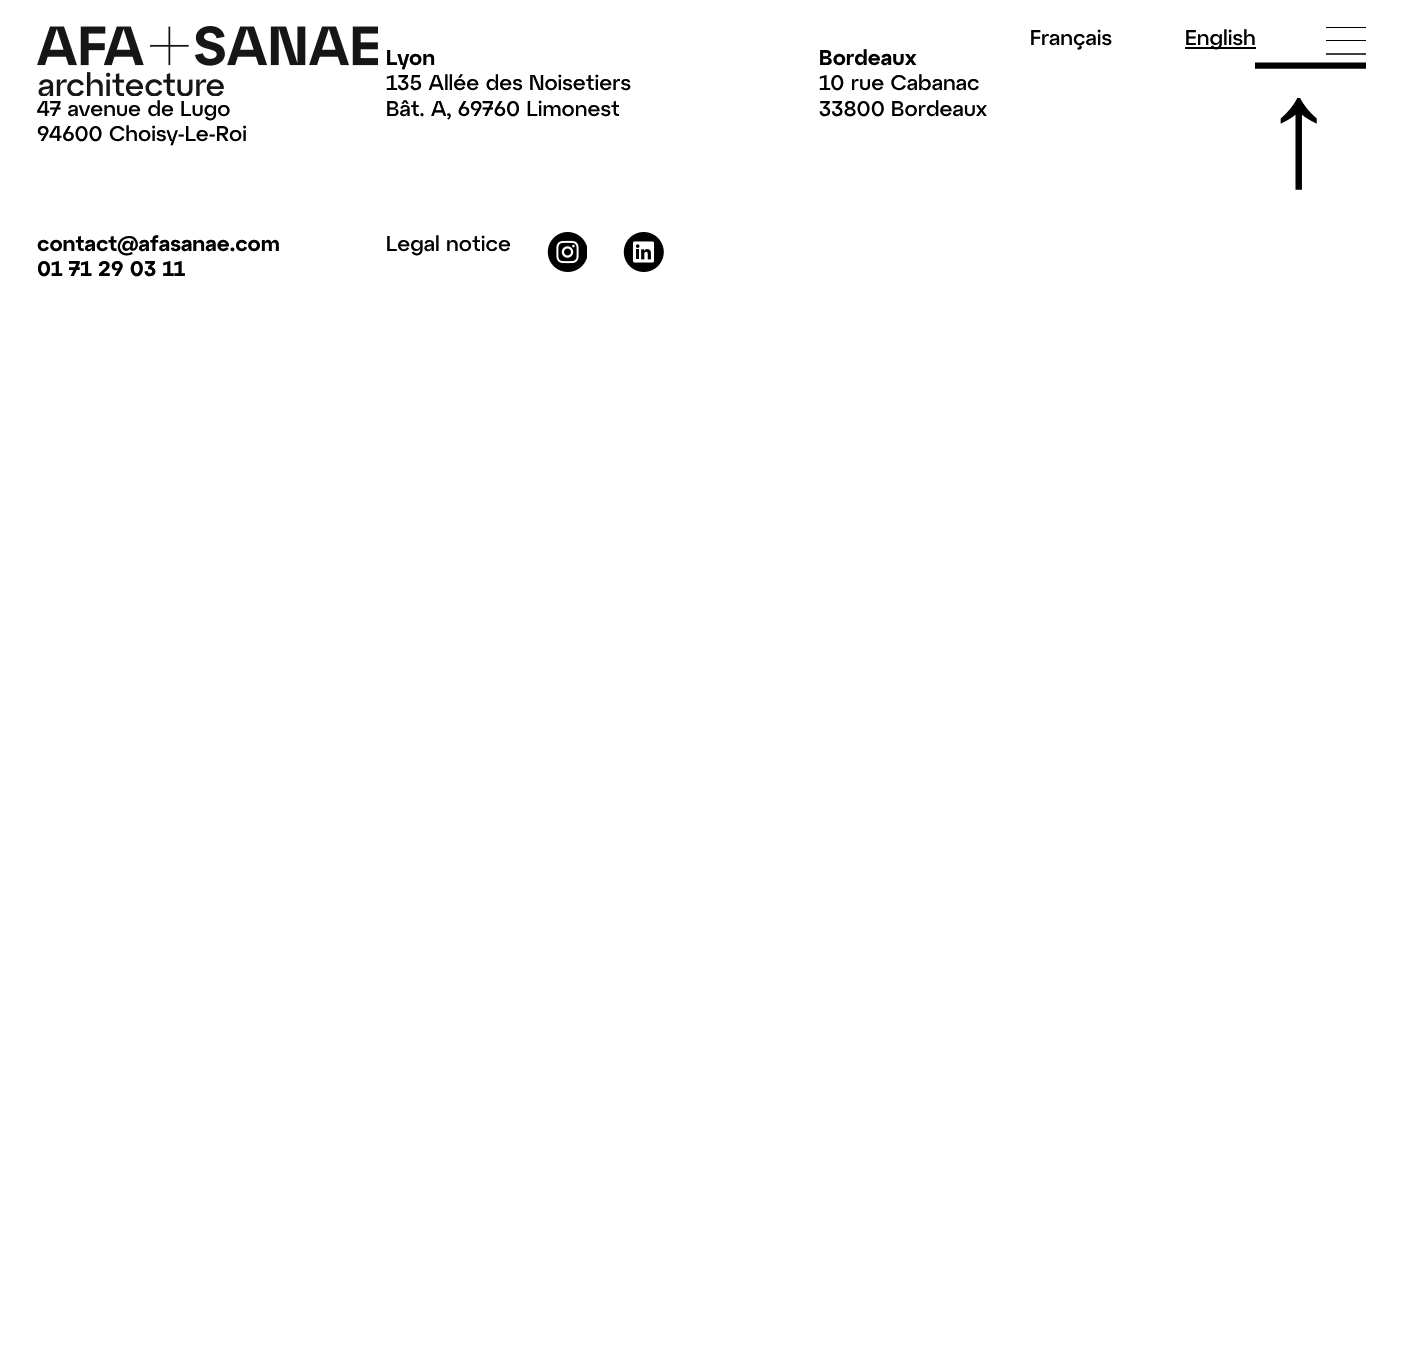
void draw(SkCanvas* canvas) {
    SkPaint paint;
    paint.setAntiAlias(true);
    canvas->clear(0xFFFFFFFF);
    canvas->drawImageRect(SkImages::DeferredFromEncodedData(SkData::MakeFromFileName("img1.png")), SkRect::MakeXYWH(37, 26, 341, 70), SkSamplingOptions());
    SkFont font1(fontMgr->matchFamilyStyle("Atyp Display", SkFontStyle(500, SkFontStyle::kNormal_Width, SkFontStyle::kUpright_Slant)), 21.25f);
    font1.setSubpixel(true);
    paint.setColor(0xFF000000);
    canvas->drawString("Français", 1030, 45, font1, paint);
    canvas->drawRect(SkRect::MakeXYWH(1185, 47, 71, 2), paint);
    canvas->drawString("English", 1185, 45, font1, paint);
    canvas->drawRect(SkRect::MakeXYWH(1326, 27, 40, 1), paint);
    canvas->drawRect(SkRect::MakeXYWH(1326, 40, 40, 1), paint);
    paint.setStyle(SkPaint::kStroke_Style);
    paint.setStrokeWidth(1.3f);
    canvas->drawPath(SkPathBuilder().moveTo(1326, 54).lineTo(1366, 54).detach(), paint);
    paint.setStyle(SkPaint::kFill_Style);
    canvas->drawString("47 avenue de Lugo", 37, 116, font1, paint);
    canvas->drawString("94600 Choisy-Le-Roi", 37, 141, font1, paint);
    SkFont font2(fontMgr->matchFamilyStyle("Atyp Display", SkFontStyle(600, SkFontStyle::kNormal_Width, SkFontStyle::kUpright_Slant)), 21.25f);
    font2.setSubpixel(true);
    canvas->drawString("Lyon", 386, 65, font2, paint);
    canvas->drawString("135 Allée des Noisetiers", 386, 90, font1, paint);
    canvas->drawString("Bât. A, 69760 Limonest", 386, 116, font1, paint);
    canvas->drawString("Bordeaux", 819, 65, font2, paint);
    canvas->drawString("10 rue Cabanac", 819, 90, font1, paint);
    canvas->drawString("33800 Bordeaux", 819, 116, font1, paint);
    canvas->drawImageRect(SkImages::DeferredFromEncodedData(SkData::MakeFromFileName("img2.png")), SkRect::MakeXYWH(1255, 62, 111, 128), SkSamplingOptions());
    canvas->drawString("contact@afasanae.com", 37, 251, font2, paint);
    canvas->drawString("01 71 29 03 11", 37, 276, font2, paint);
    canvas->drawString("Legal notice", 386, 251, font1, paint);
    canvas->drawImageRect(SkImages::DeferredFromEncodedData(SkData::MakeFromFileName("img3.png")), SkRect::MakeXYWH(547, 232, 40, 40), SkSamplingOptions());
    canvas->drawImageRect(SkImages::DeferredFromEncodedData(SkData::MakeFromFileName("img4.png")), SkRect::MakeXYWH(623, 232, 41, 40), SkSamplingOptions());
}
